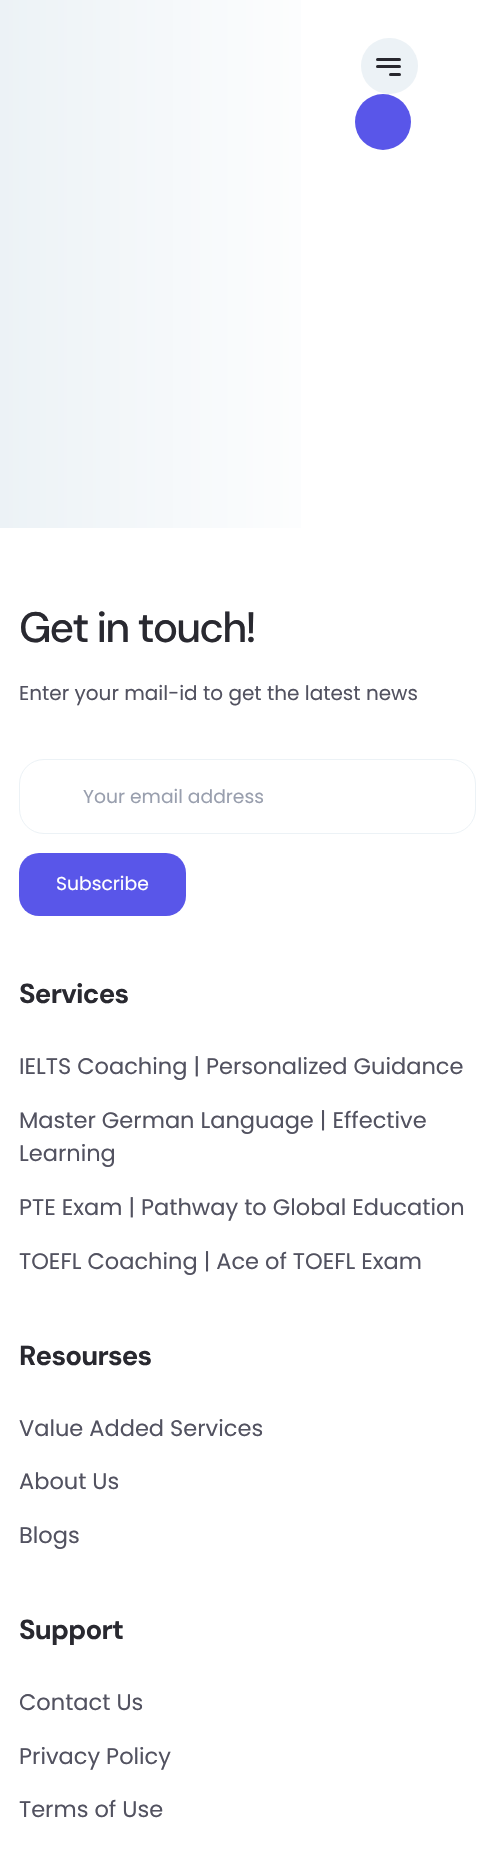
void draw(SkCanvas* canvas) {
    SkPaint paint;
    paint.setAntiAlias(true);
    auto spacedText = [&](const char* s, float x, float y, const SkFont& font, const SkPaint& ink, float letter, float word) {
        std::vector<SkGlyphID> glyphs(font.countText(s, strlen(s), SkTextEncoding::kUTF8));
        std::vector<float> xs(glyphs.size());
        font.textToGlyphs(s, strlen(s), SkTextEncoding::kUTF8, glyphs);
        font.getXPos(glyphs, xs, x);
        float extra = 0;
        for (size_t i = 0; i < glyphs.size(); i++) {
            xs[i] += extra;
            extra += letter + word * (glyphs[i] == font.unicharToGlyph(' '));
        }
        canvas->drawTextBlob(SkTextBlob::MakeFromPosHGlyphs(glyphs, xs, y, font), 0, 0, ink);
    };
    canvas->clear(0xFFFFFFFF);
    {
        const SkColor colors[] = {0xFFECF2F6, 0xFFFFFFFF};
        const float stops[] = {0, 0.7f};
        const SkPoint ends[] = {{0, 264}, {495, 264}};
        paint.setShader(SkGradientShader::MakeLinear(ends, colors, stops, 2, SkTileMode::kClamp));
        paint.setAlpha(255);
    }
    canvas->drawRect(SkRect::MakeXYWH(0, 0, 301, 528), paint);
    paint.setShader(nullptr);
    paint.setColor(0xFFECF2F6);
    canvas->drawRoundRect(SkRect::MakeXYWH(361, 38, 57, 56), 28, 28, paint);
    paint.setColor(0xFF27272E);
    canvas->drawRoundRect(SkRect::MakeXYWH(376, 58, 25, 3), 1.5f, 1.5f, paint);
    canvas->drawRoundRect(SkRect::MakeXYWH(376, 65, 25, 3), 1.5f, 1.5f, paint);
    canvas->drawRoundRect(SkRect::MakeXYWH(389, 73, 12, 3), 1.5f, 1.5f, paint);
    paint.setColor(0xFF5956E9);
    canvas->drawCircle(383, 122, 28, paint);
    SkFont font1(fontMgr->matchFamilyStyle("DM Sans", SkFontStyle(500, SkFontStyle::kNormal_Width, SkFontStyle::kUpright_Slant)), 42.5f);
    font1.setSubpixel(true);
    paint.setColor(0xFF292930);
    spacedText("Get in touch!", 19, 642, font1, paint, -1.9f, 0);
    SkFont font2(fontMgr->matchFamilyStyle("Poppins", SkFontStyle::Normal()), 20);
    font2.setSubpixel(true);
    paint.setColor(0xFF525260);
    canvas->drawString("Enter your mail-id to get the latest news", 19, 700, font2, paint);
    paint.setStyle(SkPaint::kStroke_Style);
    paint.setStrokeWidth(1);
    paint.setColor(0xFFECF2F6);
    canvas->drawRoundRect(SkRect::MakeXYWH(19.5f, 759.5f, 456, 74), 24.5f, 24.5f, paint);
    SkFont font3(fontMgr->matchFamilyStyle("Poppins", SkFontStyle::Normal()), 18.75f);
    font3.setSubpixel(true);
    paint.setStyle(SkPaint::kFill_Style);
    paint.setColor(0xFF999FAE);
    canvas->drawString("Your email address", 83, 803, font3, paint);
    paint.setColor(0xFF5956E9);
    canvas->drawRoundRect(SkRect::MakeXYWH(19, 853, 167, 63), 20, 20, paint);
    paint.setColor(0xFFFFFFFF);
    canvas->drawString("Subscribe", 56, 890, font3, paint);
    SkFont font4(fontMgr->matchFamilyStyle("DM Sans", SkFontStyle::Bold()), 27.5f);
    font4.setSubpixel(true);
    paint.setColor(0xFF292930);
    spacedText("Services", 19, 1003, font4, paint, -0.75f, 0);
    SkFont font5(fontMgr->matchFamilyStyle("Poppins", SkFontStyle::Normal()), 22.5f);
    font5.setSubpixel(true);
    paint.setColor(0xFF525260);
    canvas->drawString("IELTS Coaching | Personalized Guidance", 19, 1074, font5, paint);
    canvas->drawString("Master German Language | Effective", 19, 1128, font5, paint);
    canvas->drawString("Learning", 19, 1161, font5, paint);
    canvas->drawString("PTE Exam | Pathway to Global Education", 19, 1215, font5, paint);
    canvas->drawString("TOEFL Coaching | Ace of TOEFL Exam", 19, 1269, font5, paint);
    paint.setColor(0xFF292930);
    spacedText("Resourses", 19, 1365, font4, paint, -0.75f, 0);
    paint.setColor(0xFF525260);
    canvas->drawString("Value Added Services", 19, 1436, font5, paint);
    canvas->drawString("About Us", 19, 1489, font5, paint);
    canvas->drawString("Blogs", 19, 1543, font5, paint);
    paint.setColor(0xFF292930);
    spacedText("Support", 19, 1639, font4, paint, -0.75f, 0);
    paint.setColor(0xFF525260);
    canvas->drawString("Contact Us", 19, 1710, font5, paint);
    canvas->drawString("Privacy Policy", 19, 1764, font5, paint);
    canvas->drawString("Terms of Use", 19, 1817, font5, paint);
}
